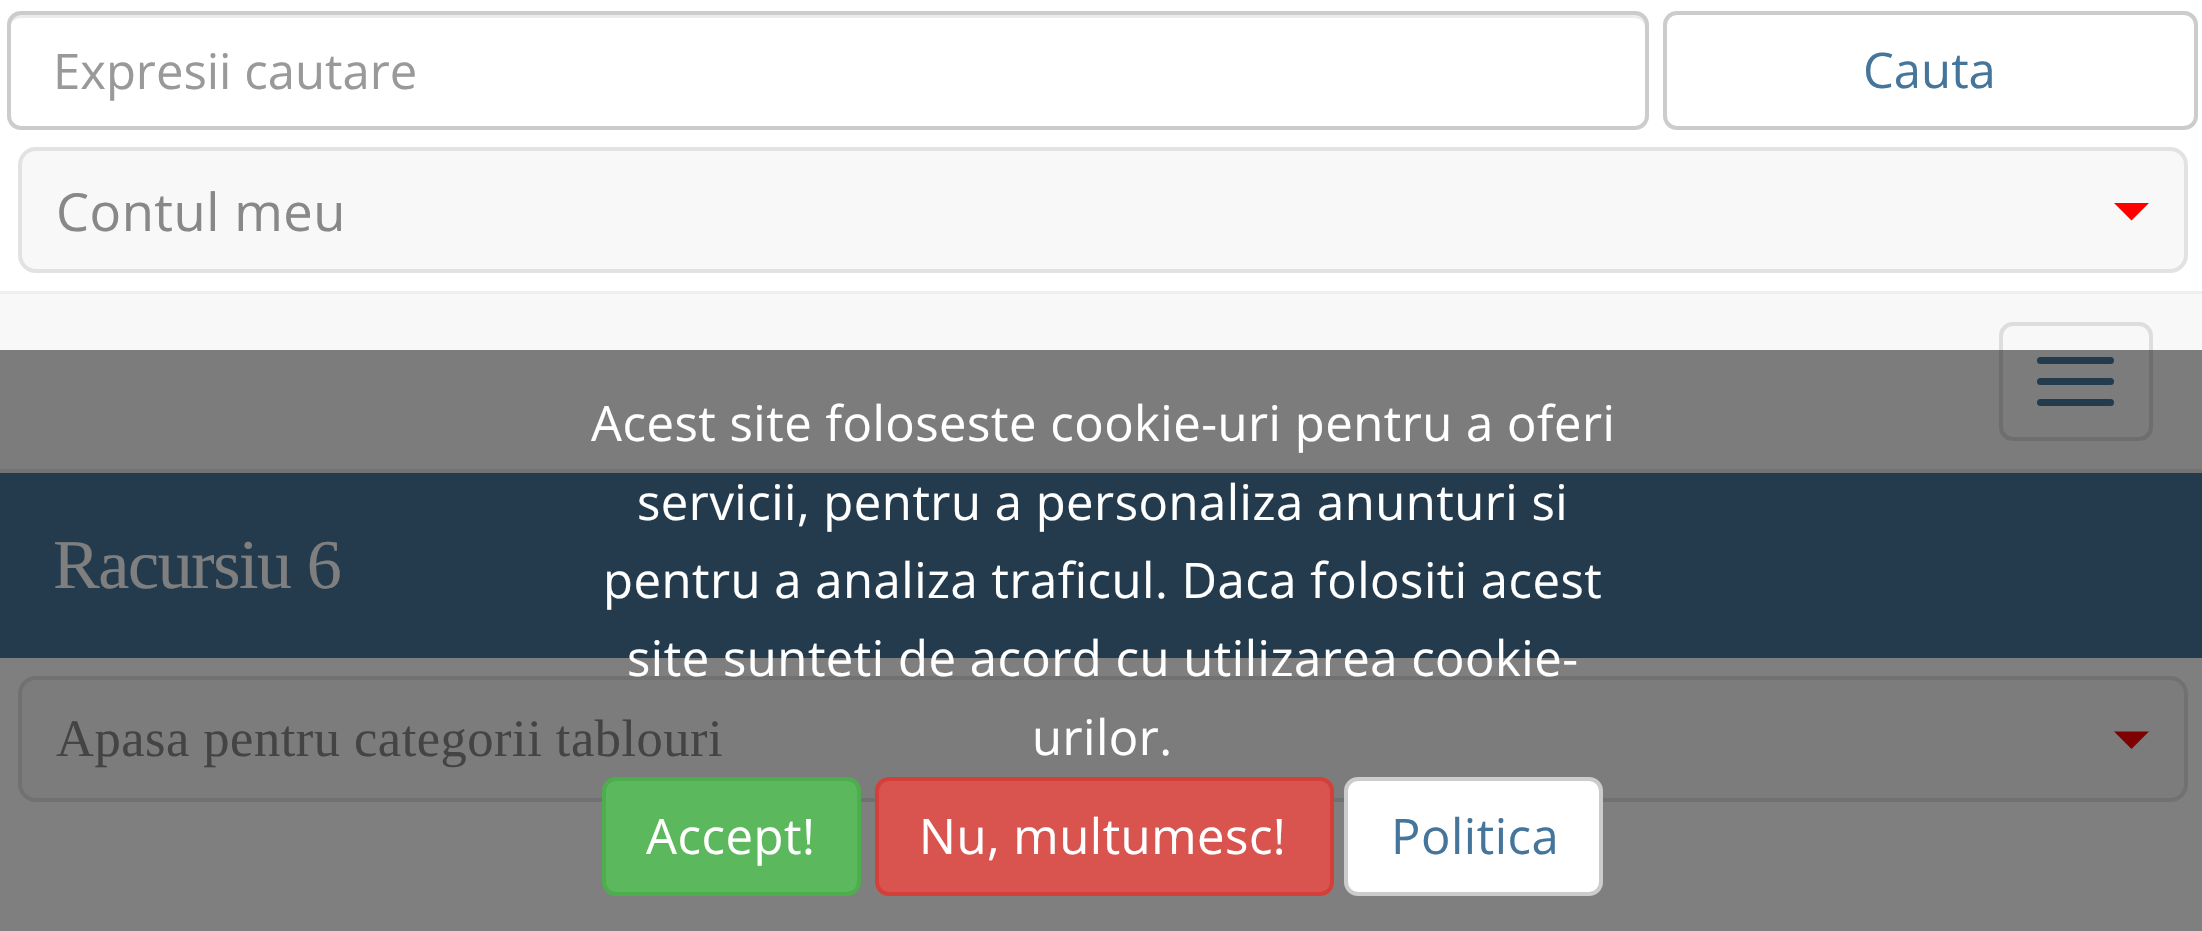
void draw(SkCanvas* canvas) {
    SkPaint paint;
    paint.setAntiAlias(true);
    auto spacedText = [&](const char* s, float x, float y, const SkFont& font, const SkPaint& ink, float letter, float word) {
        std::vector<SkGlyphID> glyphs(font.countText(s, strlen(s), SkTextEncoding::kUTF8));
        std::vector<float> xs(glyphs.size());
        font.textToGlyphs(s, strlen(s), SkTextEncoding::kUTF8, glyphs);
        font.getXPos(glyphs, xs, x);
        float extra = 0;
        for (size_t i = 0; i < glyphs.size(); i++) {
            xs[i] += extra;
            extra += letter + word * (glyphs[i] == font.unicharToGlyph(' '));
        }
        canvas->drawTextBlob(SkTextBlob::MakeFromPosHGlyphs(glyphs, xs, y, font), 0, 0, ink);
    };
    canvas->clear(0xFFFFFFFF);
    paint.setColor(0xFFEFEFEF);
    canvas->drawRect(SkRect::MakeXYWH(0, 291, 2202, 3), paint);
    paint.setColor(0xFFECECEC);
    canvas->drawPath(SkPathBuilder().moveTo(21, 18).lineTo(1634, 18).cubicTo(1640, 18, 1645, 22, 1645, 28).lineTo(1645, 25).cubicTo(1645, 19, 1640, 14, 1634, 14).lineTo(22, 14).cubicTo(16, 14, 12, 18, 11, 23).cubicTo(13, 20, 17, 18, 21, 18).close().detach(), paint);
    paint.setStyle(SkPaint::kStroke_Style);
    paint.setStrokeWidth(4);
    paint.setColor(0xFFCCCCCC);
    canvas->drawRoundRect(SkRect::MakeXYWH(9, 13, 1638, 115), 12, 12, paint);
    SkFont font1(fontMgr->matchFamilyStyle("Open Sans", SkFontStyle::Normal()), 49);
    font1.setSubpixel(true);
    paint.setStyle(SkPaint::kFill_Style);
    paint.setColor(0xFF999999);
    canvas->drawString("Expresii cautare", 53, 89, font1, paint);
    paint.setStyle(SkPaint::kStroke_Style);
    paint.setColor(0xFFCCCCCC);
    canvas->drawRoundRect(SkRect::MakeXYWH(1665, 13, 531, 115), 12, 12, paint);
    paint.setStyle(SkPaint::kFill_Style);
    paint.setColor(0xFF46759B);
    canvas->drawString("Cauta", 1863, 88, font1, paint);
    paint.setColor(0xFFF8F8F8);
    canvas->drawRoundRect(SkRect::MakeXYWH(20, 149, 2166, 122), 16, 16, paint);
    paint.setStyle(SkPaint::kStroke_Style);
    paint.setColor(0xFFE2E2E2);
    canvas->drawRoundRect(SkRect::MakeXYWH(20, 149, 2166, 122), 16, 16, paint);
    SkFont font2(fontMgr->matchFamilyStyle("Open Sans", SkFontStyle::Normal()), 52.5f);
    font2.setSubpixel(true);
    paint.setStyle(SkPaint::kFill_Style);
    paint.setColor(0xFF888888);
    spacedText("Contul meu", 56, 231, font2, paint, 0.5f, 0);
    paint.setColor(0xFFFF0000);
    canvas->drawPath(SkPathBuilder().moveTo(2114, 203).lineTo(2149, 203).lineTo(2131.5f, 220.5f).close().detach(), paint);
    paint.setColor(0xFFF8F8F8);
    canvas->drawRect(SkRect::MakeXYWH(0, 294, 2202, 175), paint);
    paint.setColor(0xFFE7E7E7);
    canvas->drawRect(SkRect::MakeXYWH(0, 469, 2202, 4), paint);
    paint.setStyle(SkPaint::kStroke_Style);
    paint.setColor(0xFFDDDDDD);
    canvas->drawRoundRect(SkRect::MakeXYWH(2001, 324, 150, 115), 12, 12, paint);
    paint.setStyle(SkPaint::kFill_Style);
    paint.setColor(0xFF46759B);
    canvas->drawRoundRect(SkRect::MakeXYWH(2037, 357, 77, 7), 3.5f, 3.5f, paint);
    canvas->drawRoundRect(SkRect::MakeXYWH(2037, 378, 77, 7), 3.5f, 3.5f, paint);
    canvas->drawRoundRect(SkRect::MakeXYWH(2037, 399, 77, 7), 3.5f, 3.5f, paint);
    canvas->drawRect(SkRect::MakeXYWH(0, 473, 2202, 185), paint);
    SkFont font3(fontMgr->matchFamilyStyle("Liberation Serif", SkFontStyle::Normal()), 70);
    font3.setSubpixel(true);
    paint.setColor(0xFFFFFFFF);
    spacedText("Racursiu 6", 53, 588, font3, paint, -1.4f, 0);
    paint.setColor(0xFFF8F8F8);
    canvas->drawRoundRect(SkRect::MakeXYWH(20, 678, 2166, 122), 16, 16, paint);
    paint.setStyle(SkPaint::kStroke_Style);
    paint.setColor(0xFFE2E2E2);
    canvas->drawRoundRect(SkRect::MakeXYWH(20, 678, 2166, 122), 16, 16, paint);
    SkFont font4(fontMgr->matchFamilyStyle("Liberation Serif", SkFontStyle::Normal()), 52.5f);
    font4.setSubpixel(true);
    paint.setStyle(SkPaint::kFill_Style);
    paint.setColor(0xFF888888);
    spacedText("Apasa pentru categorii tablouri", 56, 756, font4, paint, 0.5f, 0);
    paint.setColor(0xFFFF0000);
    canvas->drawPath(SkPathBuilder().moveTo(2114, 731.5f).lineTo(2149, 731.5f).lineTo(2131.5f, 749).close().detach(), paint);
    paint.setColor(0x80000000);
    canvas->drawRect(SkRect::MakeXYWH(0, 350, 2202, 581), paint);
    paint.setColor(0xFFFFFFFF);
    spacedText("Acest site foloseste cookie-uri pentru a oferi", 591, 441, font1, paint, 0.5f, 0);
    spacedText("servicii, pentru a personaliza anunturi si", 637, 520, font1, paint, 0.5f, 0);
    spacedText("pentru a analiza traficul. Daca folositi acest", 603, 598, font1, paint, 0.5f, 0);
    spacedText("site sunteti de acord cu utilizarea cookie-", 627, 676, font1, paint, 0.5f, 0);
    spacedText("urilor.", 1032, 755, font1, paint, 0.5f, 0);
    paint.setColor(0xFF5CB85C);
    canvas->drawRoundRect(SkRect::MakeXYWH(604, 779, 255, 115), 12, 12, paint);
    paint.setStyle(SkPaint::kStroke_Style);
    paint.setColor(0xFF4CAE4C);
    canvas->drawRoundRect(SkRect::MakeXYWH(604, 779, 255, 115), 12, 12, paint);
    paint.setStyle(SkPaint::kFill_Style);
    paint.setColor(0xFFFFFFFF);
    spacedText("Accept!", 646, 854, font1, paint, 0.5f, 0);
    paint.setColor(0xFFD9534F);
    canvas->drawRoundRect(SkRect::MakeXYWH(877, 779, 455, 115), 12, 12, paint);
    paint.setStyle(SkPaint::kStroke_Style);
    paint.setColor(0xFFD43F3A);
    canvas->drawRoundRect(SkRect::MakeXYWH(877, 779, 455, 115), 12, 12, paint);
    paint.setStyle(SkPaint::kFill_Style);
    paint.setColor(0xFFFFFFFF);
    spacedText("Nu, multumesc!", 919, 854, font1, paint, 0.5f, 0);
    canvas->drawRoundRect(SkRect::MakeXYWH(1346, 779, 255, 115), 12, 12, paint);
    paint.setStyle(SkPaint::kStroke_Style);
    paint.setColor(0xFFCCCCCC);
    canvas->drawRoundRect(SkRect::MakeXYWH(1346, 779, 255, 115), 12, 12, paint);
    paint.setStyle(SkPaint::kFill_Style);
    paint.setColor(0xFF46759B);
    spacedText("Politica", 1391, 854, font1, paint, 0.5f, 0);
}
